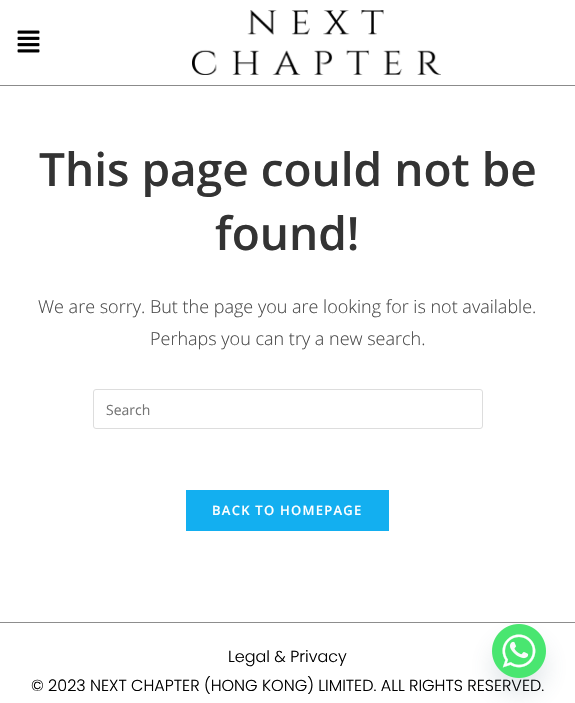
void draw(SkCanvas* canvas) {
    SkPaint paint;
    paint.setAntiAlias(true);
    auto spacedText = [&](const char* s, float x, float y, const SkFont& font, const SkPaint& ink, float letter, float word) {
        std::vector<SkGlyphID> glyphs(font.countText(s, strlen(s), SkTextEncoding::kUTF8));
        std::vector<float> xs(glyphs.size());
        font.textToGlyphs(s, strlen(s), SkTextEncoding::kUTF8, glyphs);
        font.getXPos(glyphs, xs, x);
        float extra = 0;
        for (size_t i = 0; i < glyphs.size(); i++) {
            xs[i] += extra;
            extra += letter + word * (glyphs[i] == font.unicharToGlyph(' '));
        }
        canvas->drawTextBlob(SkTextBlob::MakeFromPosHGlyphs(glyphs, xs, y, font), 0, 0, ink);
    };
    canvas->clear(0xFFFFFFFF);
    paint.setColor(0xFF8B8B8B);
    canvas->drawRect(SkRect::MakeXYWH(0, 85, 575, 1), paint);
    canvas->drawImageRect(SkImages::DeferredFromEncodedData(SkData::MakeFromFileName("img1.png")), SkRect::MakeXYWH(17, 30, 23, 23), SkSamplingOptions());
    canvas->drawImageRect(SkImages::DeferredFromEncodedData(SkData::MakeFromFileName("img2.png")), SkRect::MakeXYWH(192, 10, 249, 65), SkSamplingOptions());
    SkFont font1(fontMgr->matchFamilyStyle("Open Sans", SkFontStyle(600, SkFontStyle::kNormal_Width, SkFontStyle::kUpright_Slant)), 46);
    font1.setSubpixel(true);
    paint.setColor(0xFF333333);
    canvas->drawString("This page could not be", 39, 186, font1, paint);
    canvas->drawString("found!", 215, 250, font1, paint);
    SkFont font2(fontMgr->matchFamilyStyle("Open Sans", SkFontStyle(300, SkFontStyle::kNormal_Width, SkFontStyle::kUpright_Slant)), 18);
    font2.setSubpixel(true);
    paint.setColor(0xFF4A4A4A);
    canvas->drawString("We are sorry. But the page you are looking for is not available.", 38, 313, font2, paint);
    canvas->drawString("Perhaps you can try a new search.", 150, 345, font2, paint);
    paint.setStyle(SkPaint::kStroke_Style);
    paint.setStrokeWidth(1);
    paint.setColor(0xFFDDDDDD);
    canvas->drawRoundRect(SkRect::MakeXYWH(93.5f, 389.5f, 389, 39), 2.5f, 2.5f, paint);
    SkFont font3(fontMgr->matchFamilyStyle("Open Sans", SkFontStyle::Normal()), 14);
    font3.setSubpixel(true);
    paint.setStyle(SkPaint::kFill_Style);
    paint.setColor(0xFF757575);
    canvas->drawString("Search", 106, 415, font3, paint);
    paint.setColor(0xFF13AFF0);
    canvas->drawRect(SkRect::MakeXYWH(186, 490, 203, 41), paint);
    SkFont font4(fontMgr->matchFamilyStyle("Open Sans", SkFontStyle(600, SkFontStyle::kNormal_Width, SkFontStyle::kUpright_Slant)), 13);
    font4.setSubpixel(true);
    paint.setColor(0xFFFFFFFF);
    spacedText("BACK TO HOMEPAGE", 212, 515, font4, paint, 1.25f, 0);
    paint.setColor(0xFF8D8D8D);
    canvas->drawRect(SkRect::MakeXYWH(0, 622, 575, 1), paint);
    SkFont font5(fontMgr->matchFamilyStyle("Poppins", SkFontStyle(300, SkFontStyle::kNormal_Width, SkFontStyle::kUpright_Slant)), 16);
    font5.setSubpixel(true);
    paint.setColor(0xFF000000);
    canvas->drawString("Legal & Privacy", 228, 662, font5, paint);
    canvas->drawString("© 2023 NEXT CHAPTER (HONG KONG) LIMITED. ALL RIGHTS RESERVED.", 31, 691, font5, paint);
    paint.setColor(0x2949687E);
    paint.setMaskFilter(SkMaskFilter::MakeBlur(kNormal_SkBlurStyle, 12));
    canvas->drawRoundRect(SkRect::MakeXYWH(492, 640, 54, 54), 27, 27, paint);
    paint.setMaskFilter(nullptr);
    canvas->drawImageRect(SkImages::DeferredFromEncodedData(SkData::MakeFromFileName("img3.png")), SkRect::MakeXYWH(492, 624, 54, 54), SkSamplingOptions());
}
